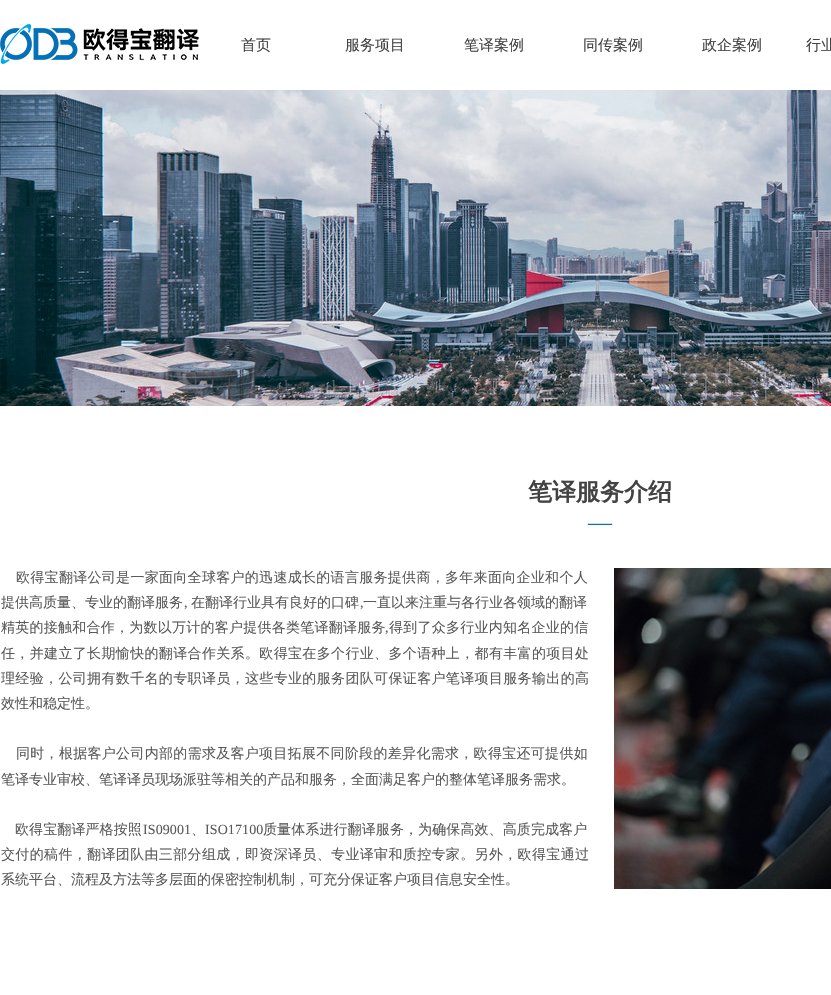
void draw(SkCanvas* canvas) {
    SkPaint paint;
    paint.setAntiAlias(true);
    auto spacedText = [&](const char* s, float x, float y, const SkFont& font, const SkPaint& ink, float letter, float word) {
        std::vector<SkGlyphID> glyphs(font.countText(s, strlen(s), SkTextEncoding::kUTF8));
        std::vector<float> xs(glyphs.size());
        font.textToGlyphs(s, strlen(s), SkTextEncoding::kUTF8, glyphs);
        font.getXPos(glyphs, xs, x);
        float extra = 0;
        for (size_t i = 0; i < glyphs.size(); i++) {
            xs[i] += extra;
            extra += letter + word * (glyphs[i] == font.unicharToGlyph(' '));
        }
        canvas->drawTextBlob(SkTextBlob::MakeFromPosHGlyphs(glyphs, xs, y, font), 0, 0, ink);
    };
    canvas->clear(0xFFFFFFFF);
    canvas->drawImageRect(SkImages::DeferredFromEncodedData(SkData::MakeFromFileName("img1.png")), SkRect::MakeXYWH(0, 24, 199, 40), SkSamplingOptions());
    SkFont font1(fontMgr->matchFamilyStyle("WenQuanYi Zen Hei", SkFontStyle(500, SkFontStyle::kNormal_Width, SkFontStyle::kUpright_Slant)), 15);
    font1.setSubpixel(true);
    paint.setColor(0xFF434343);
    canvas->drawString("首页", 241, 50, font1, paint);
    canvas->drawString("服务项目", 345, 50, font1, paint);
    canvas->drawString("笔译案例", 464, 50, font1, paint);
    canvas->drawString("同传案例", 583, 50, font1, paint);
    canvas->drawString("政企案例", 702, 50, font1, paint);
    canvas->drawString("行业", 806, 50, font1, paint);
    canvas->drawImageRect(SkImages::DeferredFromEncodedData(SkData::MakeFromFileName("img2.png")), SkRect::MakeXYWH(0, 90, 831, 316), SkSamplingOptions());
    SkFont font2(fontMgr->matchFamilyStyle("WenQuanYi Zen Hei", SkFontStyle::Bold()), 24);
    font2.setSubpixel(true);
    canvas->drawString("笔译服务介绍", 528, 500, font2, paint);
    SkFont font3(fontMgr->matchFamilyStyle("Liberation Serif", SkFontStyle::Normal()), 24);
    font3.setSubpixel(true);
    paint.setColor(0xFF0470B8);
    canvas->drawString("—", 588, 530, font3, paint);
    SkFont font4(fontMgr->matchFamilyStyle("WenQuanYi Zen Hei", SkFontStyle(500, SkFontStyle::kNormal_Width, SkFontStyle::kUpright_Slant)), 14);
    font4.setSubpixel(true);
    paint.setColor(0xFF5A5A5A);
    spacedText("欧得宝翻译公司是一家面向全球客户的迅速成长的语言服务提供商，多年来面向企业和个人", 16, 582, font4, paint, 0.3f, 0);
    canvas->drawString("提供高质量、专业的翻译服务", 1, 607, font4, paint);
    SkFont font5(fontMgr->matchFamilyStyle("Liberation Serif", SkFontStyle::Normal()), 14);
    font5.setSubpixel(true);
    canvas->drawString(",", 184, 607, font5, paint);
    canvas->drawString("在翻译行业具有良好的口碑", 191, 607, font4, paint);
    canvas->drawString(",", 360, 607, font5, paint);
    canvas->drawString("一直以来注重与各行业各领域的翻译", 363, 607, font4, paint);
    spacedText("精英的接触和合作，为数以万计的客户提供各类笔译翻译服务", 1, 632, font4, paint, 0.25f, 0);
    spacedText(",", 385, 632, font5, paint, 0.25f, 0);
    spacedText("得到了众多行业内知名企业的信", 389, 632, font4, paint, 0.25f, 0);
    spacedText("任，并建立了长期愉快的翻译合作关系。欧得宝在多个行业、多个语种上，都有丰富的项目处", 1, 658, font4, paint, 0.35f, 0);
    spacedText("理经验，公司拥有数千名的专职译员，这些专业的服务团队可保证客户笔译项目服务输出的高", 1, 683, font4, paint, 0.35f, 0);
    canvas->drawString("效性和稳定性。", 1, 708, font4, paint);
    spacedText("同时，根据客户公司内部的需求及客户项目拓展不同阶段的差异化需求，欧得宝还可提供如", 16, 758, font4, paint, 0.3f, 0);
    canvas->drawString("笔译专业审校、笔译译员现场派驻等相关的产品和服务，全面满足客户的整体笔译服务需求。", 1, 784, font4, paint);
    spacedText("欧得宝翻译严格按照", 15, 834, font4, paint, 0.1f, 0);
    spacedText("IS09001", 143, 834, font5, paint, 0.1f, 0);
    spacedText("、", 191, 834, font4, paint, 0.1f, 0);
    spacedText("ISO17100", 205, 834, font5, paint, 0.1f, 0);
    spacedText("质量体系进行翻译服务，为确保高效、高质完成客户", 263, 834, font4, paint, 0.1f, 0);
    spacedText("交付的稿件，翻译团队由三部分组成，即资深译员、专业译审和质控专家。另外，欧得宝通过", 1, 859, font4, paint, 0.35f, 0);
    canvas->drawString("系统平台、流程及方法等多层面的保密控制机制，可充分保证客户项目信息安全性。", 1, 884, font4, paint);
    canvas->drawImageRect(SkImages::DeferredFromEncodedData(SkData::MakeFromFileName("img3.png")), SkRect::MakeXYWH(614, 568, 217, 321), SkSamplingOptions());
}
